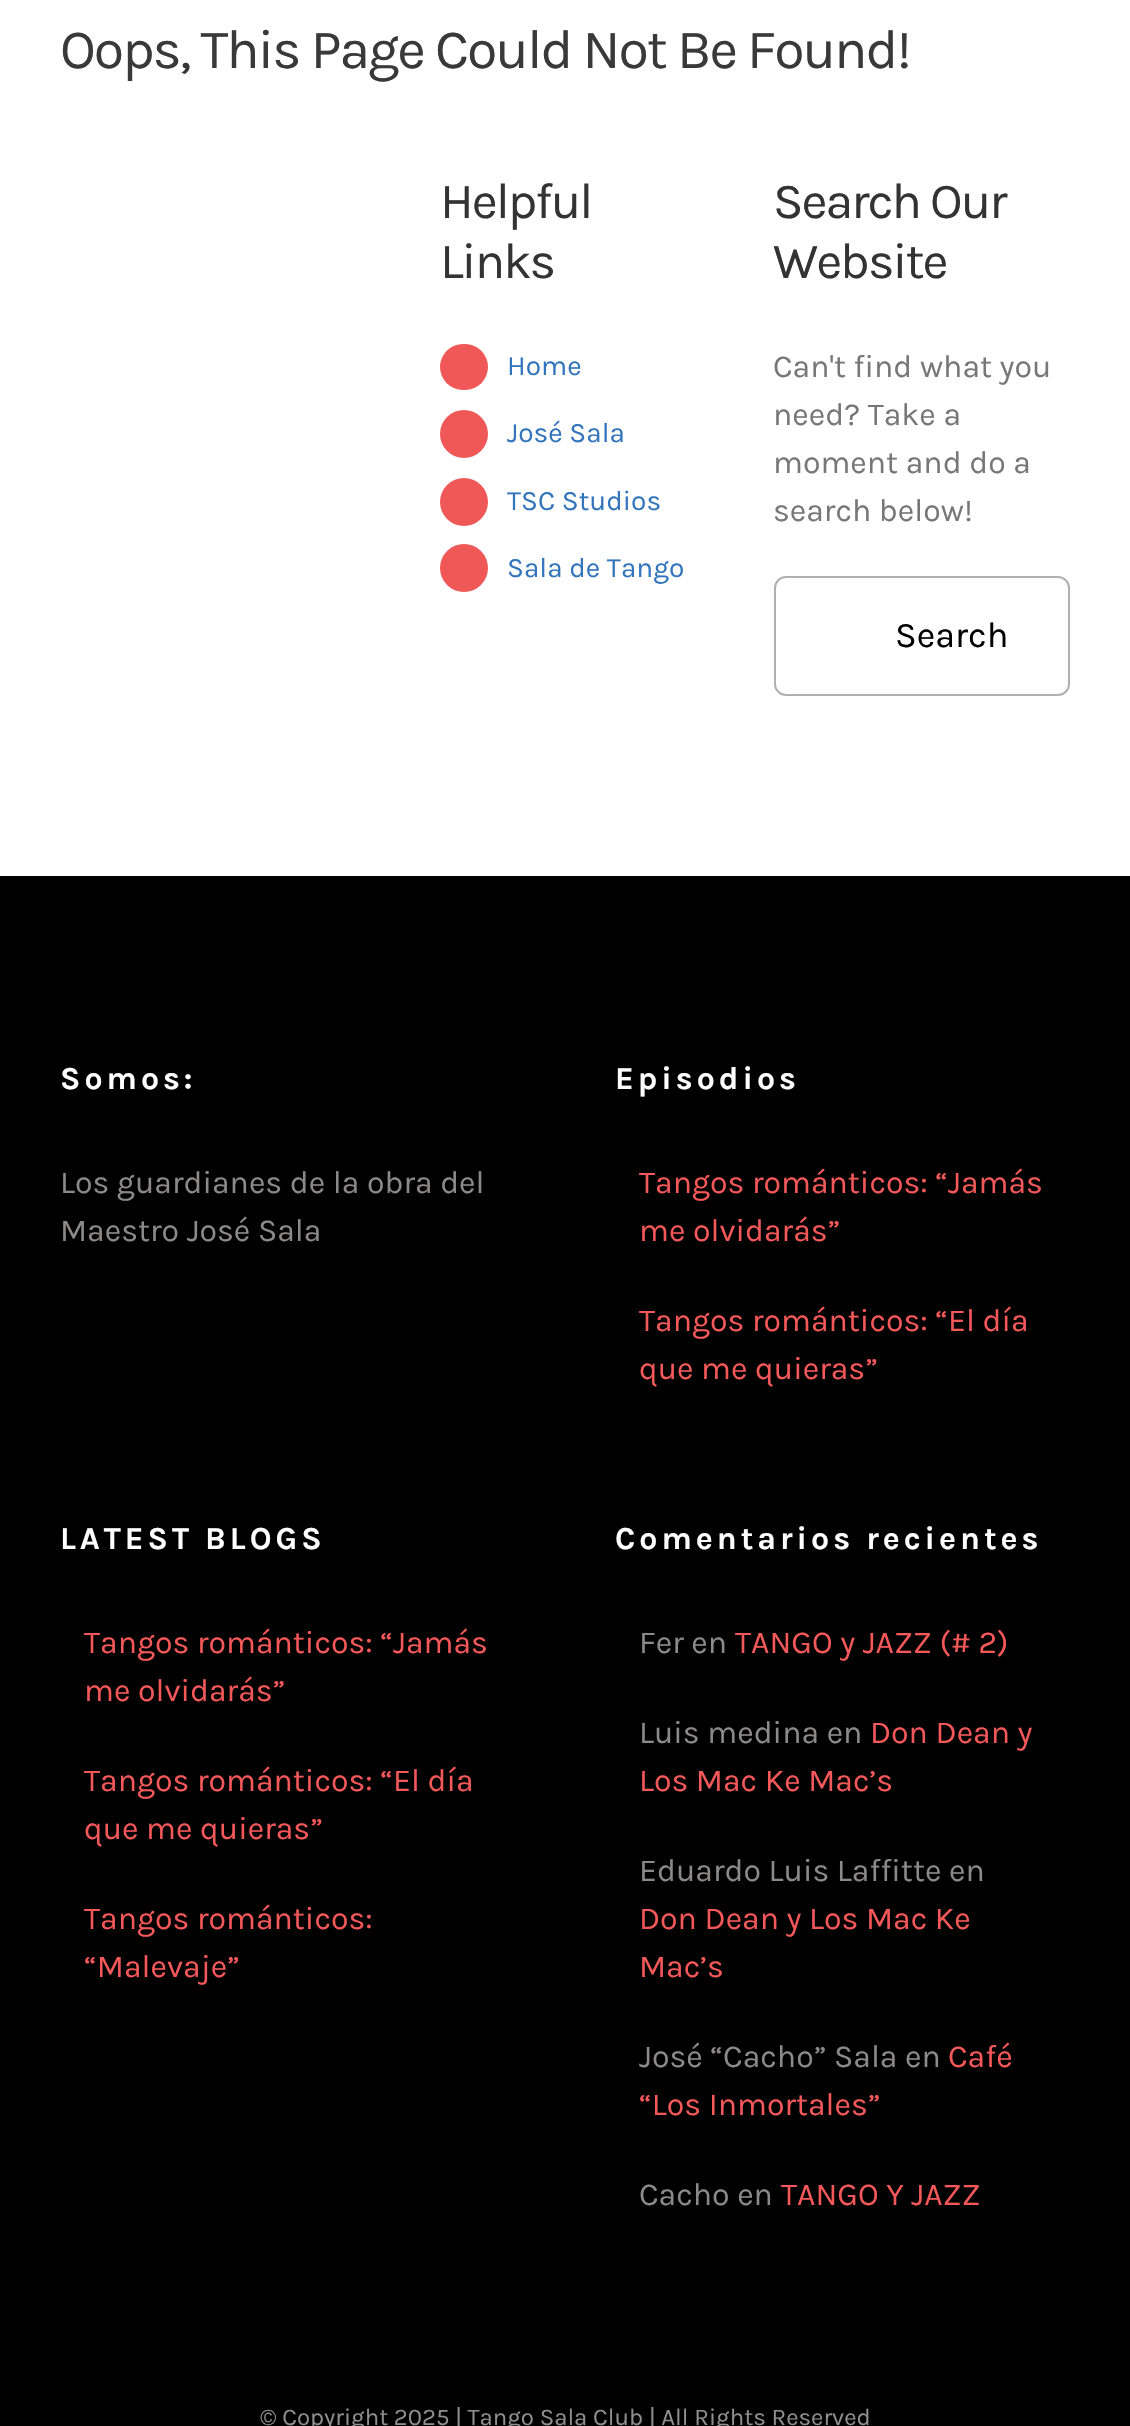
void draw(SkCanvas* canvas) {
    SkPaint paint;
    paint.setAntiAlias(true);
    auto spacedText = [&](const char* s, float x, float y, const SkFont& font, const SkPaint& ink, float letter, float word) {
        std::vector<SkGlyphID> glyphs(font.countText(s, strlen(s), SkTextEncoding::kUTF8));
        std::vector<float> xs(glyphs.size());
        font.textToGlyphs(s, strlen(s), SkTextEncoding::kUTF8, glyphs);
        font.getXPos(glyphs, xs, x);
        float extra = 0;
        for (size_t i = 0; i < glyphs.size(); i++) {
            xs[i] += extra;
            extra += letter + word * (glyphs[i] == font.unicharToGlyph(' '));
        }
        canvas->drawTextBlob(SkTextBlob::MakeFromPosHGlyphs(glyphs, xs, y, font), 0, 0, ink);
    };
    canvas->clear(0xFFFFFFFF);
    SkFont font1(fontMgr->matchFamilyStyle("Karla", SkFontStyle::Normal()), 55.5f);
    font1.setSubpixel(true);
    paint.setColor(0xFF393939);
    spacedText("Oops, This Page Could Not Be Found!", 60, 68, font1, paint, -2, 0);
    SkFont font2(fontMgr->matchFamilyStyle("Karla", SkFontStyle::Normal()), 50.5f);
    font2.setSubpixel(true);
    paint.setColor(0xFF333333);
    spacedText("Helpful", 440, 218, font2, paint, -2, 0);
    spacedText("Links", 440, 278, font2, paint, -2, 0);
    paint.setColor(0xFFF05858);
    canvas->drawRoundRect(SkRect::MakeXYWH(440, 344, 48, 46), 23, 23, paint);
    SkFont font3(fontMgr->matchFamilyStyle("Karla", SkFontStyle::Normal()), 28);
    font3.setSubpixel(true);
    paint.setColor(0xFF3275BC);
    canvas->drawString("Home", 507, 375, font3, paint);
    paint.setColor(0xFFF05858);
    canvas->drawCircle(464, 434, 24, paint);
    paint.setColor(0xFF3275BC);
    canvas->drawString("José Sala", 507, 442, font3, paint);
    paint.setColor(0xFFF05858);
    canvas->drawCircle(464, 502, 24, paint);
    paint.setColor(0xFF3275BC);
    canvas->drawString("TSC Studios", 507, 510, font3, paint);
    paint.setColor(0xFFF05858);
    canvas->drawCircle(464, 568, 24, paint);
    paint.setColor(0xFF3275BC);
    canvas->drawString("Sala de Tango", 507, 577, font3, paint);
    paint.setColor(0xFF333333);
    spacedText("Search Our", 773, 218, font2, paint, -2, 0);
    spacedText("Website", 773, 278, font2, paint, -2, 0);
    SkFont font4(fontMgr->matchFamilyStyle("Karla", SkFontStyle::Normal()), 32);
    font4.setSubpixel(true);
    paint.setColor(0xFF777777);
    canvas->drawString("Can't find what you", 773, 377, font4, paint);
    canvas->drawString("need? Take a", 773, 425, font4, paint);
    canvas->drawString("moment and do a", 773, 473, font4, paint);
    canvas->drawString("search below!", 773, 521, font4, paint);
    paint.setStyle(SkPaint::kStroke_Style);
    paint.setStrokeWidth(2);
    paint.setColor(0xFFB0B0B0);
    canvas->drawRoundRect(SkRect::MakeXYWH(775, 577, 294, 118), 11, 11, paint);
    SkFont font5(fontMgr->matchFamilyStyle("Karla", SkFontStyle::Normal()), 36);
    font5.setSubpixel(true);
    paint.setStyle(SkPaint::kFill_Style);
    paint.setColor(0xFF000000);
    canvas->drawString("Search", 895, 647, font5, paint);
    canvas->drawRect(SkRect::MakeXYWH(0, 876, 1130, 1550), paint);
    SkFont font6(fontMgr->matchFamilyStyle("Karla", SkFontStyle::Bold()), 32);
    font6.setSubpixel(true);
    paint.setColor(0xFFFFFFFF);
    spacedText("Somos:", 60, 1089, font6, paint, 4, 0);
    paint.setColor(0xFF8C8989);
    canvas->drawString("Los guardianes de la obra del", 60, 1193, font4, paint);
    canvas->drawString("Maestro José Sala", 60, 1241, font4, paint);
    paint.setColor(0xFFFFFFFF);
    spacedText("Episodios", 615, 1089, font6, paint, 4, 0);
    paint.setColor(0xFFF55859);
    canvas->drawString("Tangos románticos: “Jamás", 639, 1193, font4, paint);
    canvas->drawString("me olvidarás”", 639, 1241, font4, paint);
    canvas->drawString("Tangos románticos: “El día", 639, 1331, font4, paint);
    canvas->drawString("que me quieras”", 639, 1379, font4, paint);
    paint.setColor(0xFFFFFFFF);
    spacedText("LATEST BLOGS", 60, 1549, font6, paint, 4, 0);
    paint.setColor(0xFFF55859);
    canvas->drawString("Tangos románticos: “Jamás", 84, 1653, font4, paint);
    canvas->drawString("me olvidarás”", 84, 1701, font4, paint);
    canvas->drawString("Tangos románticos: “El día", 84, 1791, font4, paint);
    canvas->drawString("que me quieras”", 84, 1839, font4, paint);
    canvas->drawString("Tangos románticos:", 84, 1929, font4, paint);
    canvas->drawString("“Malevaje”", 84, 1977, font4, paint);
    paint.setColor(0xFFFFFFFF);
    spacedText("Comentarios recientes", 615, 1549, font6, paint, 4, 0);
    paint.setColor(0xFF8C8989);
    canvas->drawString("Fer en", 639, 1653, font4, paint);
    paint.setColor(0xFFF55859);
    canvas->drawString("TANGO y JAZZ (# 2)", 735, 1653, font4, paint);
    paint.setColor(0xFF8C8989);
    canvas->drawString("Luis medina en", 639, 1743, font4, paint);
    paint.setColor(0xFFF55859);
    canvas->drawString("Don Dean y", 870, 1743, font4, paint);
    canvas->drawString("Los Mac Ke Mac’s", 639, 1791, font4, paint);
    paint.setColor(0xFF8C8989);
    canvas->drawString("Eduardo Luis Laffitte en", 639, 1881, font4, paint);
    paint.setColor(0xFFF55859);
    canvas->drawString("Don Dean y Los Mac Ke", 639, 1929, font4, paint);
    canvas->drawString("Mac’s", 639, 1977, font4, paint);
    paint.setColor(0xFF8C8989);
    canvas->drawString("José “Cacho” Sala en", 639, 2067, font4, paint);
    paint.setColor(0xFFF55859);
    canvas->drawString("Café", 948, 2067, font4, paint);
    canvas->drawString("“Los Inmortales”", 639, 2115, font4, paint);
    paint.setColor(0xFF8C8989);
    canvas->drawString("Cacho en", 639, 2205, font4, paint);
    paint.setColor(0xFFF55859);
    canvas->drawString("TANGO Y JAZZ", 781, 2205, font4, paint);
    SkFont font7(fontMgr->matchFamilyStyle("Karla", SkFontStyle::Normal()), 24);
    font7.setSubpixel(true);
    paint.setColor(0xFF8F8F8F);
    canvas->drawString("© Copyright 2025 | Tango Sala Club | All Rights Reserved", 260, 2425, font7, paint);
}
